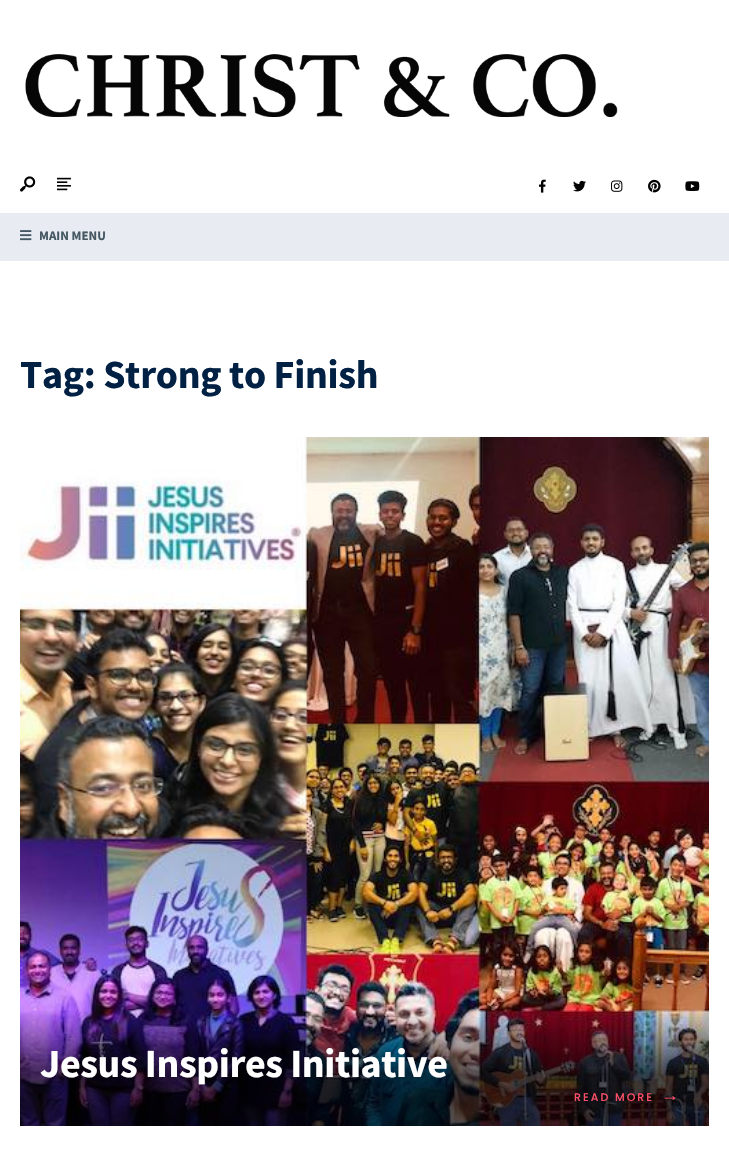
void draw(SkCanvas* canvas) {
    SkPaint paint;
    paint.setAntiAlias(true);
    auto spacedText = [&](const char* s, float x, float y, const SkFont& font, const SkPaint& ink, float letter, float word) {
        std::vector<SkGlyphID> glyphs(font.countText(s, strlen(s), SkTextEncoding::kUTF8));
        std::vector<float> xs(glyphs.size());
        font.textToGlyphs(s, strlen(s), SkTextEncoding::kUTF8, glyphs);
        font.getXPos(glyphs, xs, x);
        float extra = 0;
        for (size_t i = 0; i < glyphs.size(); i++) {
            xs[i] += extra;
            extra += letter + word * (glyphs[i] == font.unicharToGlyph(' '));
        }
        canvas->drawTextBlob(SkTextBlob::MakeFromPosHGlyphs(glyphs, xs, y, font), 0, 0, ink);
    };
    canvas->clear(0xFFFFFFFF);
    canvas->drawImageRect(SkImages::DeferredFromEncodedData(SkData::MakeFromFileName("img1.png")), SkRect::MakeXYWH(25, 54, 593, 63), SkSamplingOptions());
    canvas->drawImageRect(SkImages::DeferredFromEncodedData(SkData::MakeFromFileName("img2.png")), SkRect::MakeXYWH(20, 176, 16, 16), SkSamplingOptions());
    canvas->drawImageRect(SkImages::DeferredFromEncodedData(SkData::MakeFromFileName("img3.png")), SkRect::MakeXYWH(57, 177, 14, 14), SkSamplingOptions());
    canvas->drawImageRect(SkImages::DeferredFromEncodedData(SkData::MakeFromFileName("img4.png")), SkRect::MakeXYWH(539, 179, 7, 14), SkSamplingOptions());
    canvas->drawImageRect(SkImages::DeferredFromEncodedData(SkData::MakeFromFileName("img5.png")), SkRect::MakeXYWH(573, 180, 13, 12), SkSamplingOptions());
    canvas->drawImageRect(SkImages::DeferredFromEncodedData(SkData::MakeFromFileName("img6.png")), SkRect::MakeXYWH(611, 180, 12, 12), SkSamplingOptions());
    canvas->drawImageRect(SkImages::DeferredFromEncodedData(SkData::MakeFromFileName("img7.png")), SkRect::MakeXYWH(648, 179, 13, 14), SkSamplingOptions());
    canvas->drawImageRect(SkImages::DeferredFromEncodedData(SkData::MakeFromFileName("img8.png")), SkRect::MakeXYWH(685, 181, 15, 10), SkSamplingOptions());
    paint.setColor(0xFFE8ECF2);
    canvas->drawRect(SkRect::MakeXYWH(0, 213, 729, 48), paint);
    canvas->drawImageRect(SkImages::DeferredFromEncodedData(SkData::MakeFromFileName("img9.png")), SkRect::MakeXYWH(20, 230, 12, 11), SkSamplingOptions());
    SkFont font1(fontMgr->matchFamilyStyle("Source Sans Pro", SkFontStyle::Bold()), 13);
    font1.setSubpixel(true);
    paint.setColor(0xFF465863);
    canvas->drawString("MAIN MENU", 39, 240, font1, paint);
    SkFont font2(fontMgr->matchFamilyStyle("Source Sans Pro", SkFontStyle::Bold()), 40);
    font2.setSubpixel(true);
    paint.setColor(0xFF002044);
    spacedText("Tag: Strong to Finish", 20, 388, font2, paint, -0.3f, 0);
    canvas->drawImageRect(SkImages::DeferredFromEncodedData(SkData::MakeFromFileName("img10.png")), SkRect::MakeXYWH(20, 437, 689, 689), SkSamplingOptions());
    paint.setColor(0xFFFFFFFF);
    spacedText("Jesus Inspires Initiative", 40, 1077, font2, paint, -0.4f, 0);
    SkFont font3(fontMgr->matchFamilyStyle("Poppins", SkFontStyle(500, SkFontStyle::kNormal_Width, SkFontStyle::kUpright_Slant)), 11);
    font3.setSubpixel(true);
    paint.setColor(0xFFFF4F69);
    spacedText("READ MORE", 574, 1101, font3, paint, 2, 0);
    SkFont font4(fontMgr->matchFamilyStyle("Liberation Serif", SkFontStyle::Normal()), 18);
    font4.setSubpixel(true);
    spacedText("→", 661, 1101, font4, paint, 2, 0);
}
